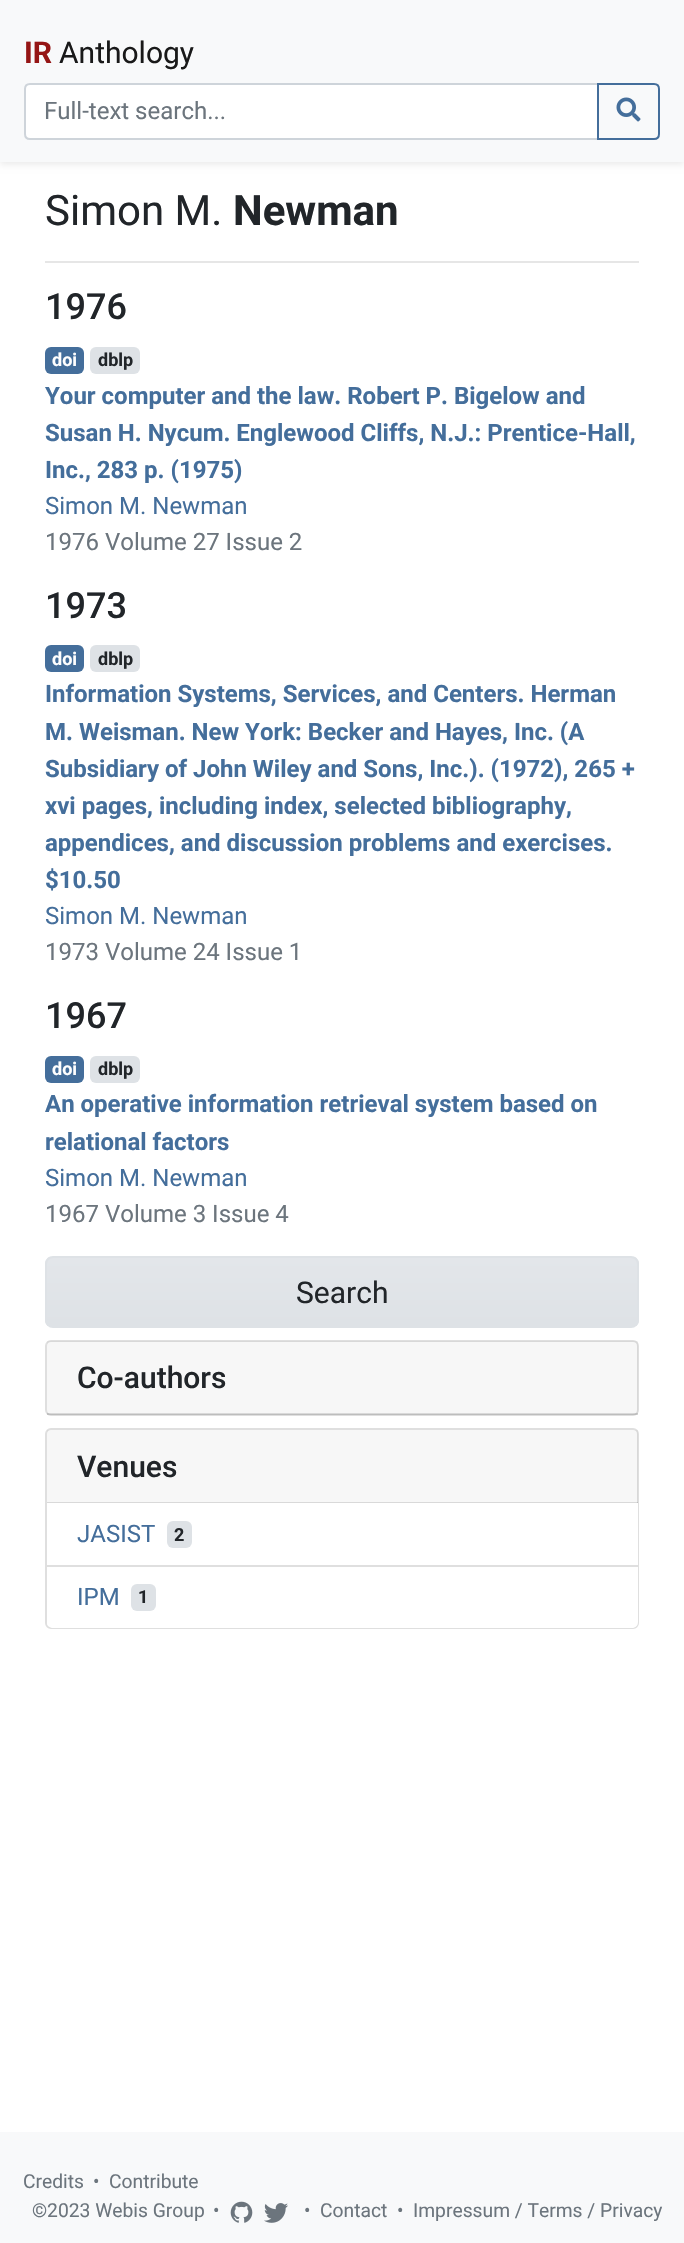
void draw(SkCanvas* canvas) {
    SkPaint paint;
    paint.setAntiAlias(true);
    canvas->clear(0xFFFFFFFF);
    paint.setColor(0x12000000);
    paint.setMaskFilter(SkMaskFilter::MakeBlur(kNormal_SkBlurStyle, 3));
    canvas->drawRect(SkRect::MakeXYWH(0, 3, 684, 162), paint);
    paint.setMaskFilter(nullptr);
    paint.setColor(0xFFF8F9FA);
    canvas->drawRect(SkRect::MakeXYWH(0, 0, 684, 162), paint);
    SkFont font1(fontMgr->matchFamilyStyle("Roboto", SkFontStyle::Bold()), 30);
    font1.setSubpixel(true);
    paint.setColor(0xFF951515);
    canvas->drawString("IR", 24, 63, font1, paint);
    SkFont font2(fontMgr->matchFamilyStyle("Roboto", SkFontStyle::Normal()), 30);
    font2.setSubpixel(true);
    paint.setColor(0xFF191919);
    canvas->drawString("Anthology", 59, 63, font2, paint);
    paint.setColor(0xFFFFFFFF);
    canvas->drawPath(SkPathBuilder().moveTo(30, 84).lineTo(598, 84).lineTo(598, 139).lineTo(30, 139).cubicTo(27, 139, 25, 137, 25, 134).lineTo(25, 89).cubicTo(25, 86, 27, 84, 30, 84).close().detach(), paint);
    paint.setStyle(SkPaint::kStroke_Style);
    paint.setStrokeWidth(2);
    paint.setColor(0xFFCED4DA);
    canvas->drawPath(SkPathBuilder().moveTo(30, 84).lineTo(598, 84).lineTo(598, 139).lineTo(30, 139).cubicTo(27, 139, 25, 137, 25, 134).lineTo(25, 89).cubicTo(25, 86, 27, 84, 30, 84).close().detach(), paint);
    SkFont font3(fontMgr->matchFamilyStyle("Roboto", SkFontStyle::Normal()), 24);
    font3.setSubpixel(true);
    paint.setStyle(SkPaint::kFill_Style);
    paint.setColor(0xFF6C757D);
    canvas->drawString("Full-text search...", 44, 119, font3, paint);
    paint.setStyle(SkPaint::kStroke_Style);
    paint.setColor(0xFF446E9B);
    canvas->drawPath(SkPathBuilder().moveTo(598, 84).lineTo(654, 84).cubicTo(657, 84, 659, 86, 659, 89).lineTo(659, 134).cubicTo(659, 137, 657, 139, 654, 139).lineTo(598, 139).close().detach(), paint);
    canvas->drawImageRect(SkImages::DeferredFromEncodedData(SkData::MakeFromFileName("img1.png")), SkRect::MakeXYWH(616, 97, 25, 25), SkSamplingOptions());
    SkFont font4(fontMgr->matchFamilyStyle("Roboto", SkFontStyle::Normal()), 42);
    font4.setSubpixel(true);
    paint.setStyle(SkPaint::kFill_Style);
    paint.setColor(0xFF212529);
    canvas->drawString("Simon M.", 45, 225, font4, paint);
    SkFont font5(fontMgr->matchFamilyStyle("Roboto", SkFontStyle::Bold()), 42);
    font5.setSubpixel(true);
    canvas->drawString("Newman", 233, 225, font5, paint);
    paint.setColor(0xFFE6E6E6);
    canvas->drawRect(SkRect::MakeXYWH(45, 261, 594, 2), paint);
    SkFont font6(fontMgr->matchFamilyStyle("Roboto", SkFontStyle(500, SkFontStyle::kNormal_Width, SkFontStyle::kUpright_Slant)), 36);
    font6.setSubpixel(true);
    paint.setColor(0xFF212529);
    canvas->drawString("1976", 45, 319, font6, paint);
    paint.setColor(0xFF446E9B);
    canvas->drawRoundRect(SkRect::MakeXYWH(45, 347, 39, 27), 6, 6, paint);
    SkFont font7(fontMgr->matchFamilyStyle("Roboto", SkFontStyle::Bold()), 18);
    font7.setSubpixel(true);
    paint.setColor(0xFFFFFFFF);
    canvas->drawString("doi", 52, 366, font7, paint);
    paint.setColor(0xFFDEE2E6);
    canvas->drawRoundRect(SkRect::MakeXYWH(90, 347, 50, 27), 6, 6, paint);
    paint.setColor(0xFF212529);
    canvas->drawString("dblp", 98, 366, font7, paint);
    SkFont font8(fontMgr->matchFamilyStyle("Roboto", SkFontStyle::Bold()), 24);
    font8.setSubpixel(true);
    paint.setColor(0xFF446E9B);
    canvas->drawString("Your computer and the law. Robert P. Bigelow and", 45, 404, font8, paint);
    canvas->drawString("Susan H. Nycum. Englewood Cliffs, N.J.: Prentice-Hall,", 45, 441, font8, paint);
    canvas->drawString("Inc., 283 p. (1975)", 45, 478, font8, paint);
    canvas->drawString("Simon M. Newman", 45, 514, font3, paint);
    paint.setColor(0xFF6C757D);
    canvas->drawString("1976 Volume 27 Issue 2", 45, 550, font3, paint);
    paint.setColor(0xFF212529);
    canvas->drawString("1973", 45, 618, font6, paint);
    paint.setColor(0xFF446E9B);
    canvas->drawRoundRect(SkRect::MakeXYWH(45, 645, 39, 27), 6, 6, paint);
    paint.setColor(0xFFFFFFFF);
    canvas->drawString("doi", 52, 665, font7, paint);
    paint.setColor(0xFFDEE2E6);
    canvas->drawRoundRect(SkRect::MakeXYWH(90, 645, 50, 27), 6, 6, paint);
    paint.setColor(0xFF212529);
    canvas->drawString("dblp", 98, 665, font7, paint);
    paint.setColor(0xFF446E9B);
    canvas->drawString("Information Systems, Services, and Centers. Herman", 45, 702, font8, paint);
    canvas->drawString("M. Weisman. New York: Becker and Hayes, Inc. (A", 45, 740, font8, paint);
    canvas->drawString("Subsidiary of John Wiley and Sons, Inc.). (1972), 265 +", 45, 777, font8, paint);
    canvas->drawString("xvi pages, including index, selected bibliography,", 45, 814, font8, paint);
    canvas->drawString("appendices, and discussion problems and exercises.", 45, 851, font8, paint);
    canvas->drawString("$10.50", 45, 888, font8, paint);
    canvas->drawString("Simon M. Newman", 45, 924, font3, paint);
    paint.setColor(0xFF6C757D);
    canvas->drawString("1973 Volume 24 Issue 1", 45, 960, font3, paint);
    paint.setColor(0xFF212529);
    canvas->drawString("1967", 45, 1028, font6, paint);
    paint.setColor(0xFF446E9B);
    canvas->drawRoundRect(SkRect::MakeXYWH(45, 1056, 39, 27), 6, 6, paint);
    paint.setColor(0xFFFFFFFF);
    canvas->drawString("doi", 52, 1075, font7, paint);
    paint.setColor(0xFFDEE2E6);
    canvas->drawRoundRect(SkRect::MakeXYWH(90, 1056, 50, 27), 6, 6, paint);
    paint.setColor(0xFF212529);
    canvas->drawString("dblp", 98, 1075, font7, paint);
    paint.setColor(0xFF446E9B);
    canvas->drawString("An operative information retrieval system based on", 45, 1112, font8, paint);
    canvas->drawString("relational factors", 45, 1150, font8, paint);
    canvas->drawString("Simon M. Newman", 45, 1186, font3, paint);
    paint.setColor(0xFF6C757D);
    canvas->drawString("1967 Volume 3 Issue 4", 45, 1222, font3, paint);
    canvas->save();
    canvas->clipPath(SkPathBuilder().moveTo(53, 1256).lineTo(631, 1256).cubicTo(635.5f, 1256, 639, 1259.5f, 639, 1264).lineTo(639, 1320).cubicTo(639, 1324.5f, 635.5f, 1328, 631, 1328).lineTo(53, 1328).cubicTo(48.5f, 1328, 45, 1324.5f, 45, 1320).lineTo(45, 1264).cubicTo(45, 1259.5f, 48.5f, 1256, 53, 1256).close().detach(), true);
    {
        const SkColor colors[] = {0xFFE3E6EA, 0xFFDEE2E6};
        const float stops[] = {0, 1};
        const SkPoint ends[] = {{342, 1257}, {342, 1326}};
        paint.setShader(SkGradientShader::MakeLinear(ends, colors, stops, 2, SkTileMode::kClamp));
        paint.setAlpha(255);
    }
    canvas->drawRect(SkRect::MakeXYWH(45, 1257, 594, 69), paint);
    canvas->restore();
    paint.setStyle(SkPaint::kStroke_Style);
    paint.setShader(nullptr);
    paint.setColor(0xFFDEE2E6);
    canvas->drawRoundRect(SkRect::MakeXYWH(46, 1257, 592, 70), 7, 7, paint);
    paint.setStyle(SkPaint::kFill_Style);
    paint.setColor(0xFF212529);
    canvas->drawString("Search", 296, 1303, font2, paint);
    paint.setStyle(SkPaint::kStroke_Style);
    paint.setColor(0xFFDFDFDF);
    canvas->drawRoundRect(SkRect::MakeXYWH(46, 1341, 592, 74), 5, 5, paint);
    paint.setStyle(SkPaint::kFill_Style);
    paint.setColor(0x08000000);
    canvas->drawRect(SkRect::MakeXYWH(47, 1341, 591, 74), paint);
    paint.setColor(0x1F000000);
    canvas->drawRect(SkRect::MakeXYWH(47, 1413, 591, 2), paint);
    SkFont font9(fontMgr->matchFamilyStyle("Roboto", SkFontStyle(500, SkFontStyle::kNormal_Width, SkFontStyle::kUpright_Slant)), 30);
    font9.setSubpixel(true);
    paint.setColor(0xFF212529);
    canvas->drawString("Co-authors", 77, 1388, font9, paint);
    paint.setStyle(SkPaint::kStroke_Style);
    paint.setColor(0xFFDFDFDF);
    canvas->drawRoundRect(SkRect::MakeXYWH(46, 1429, 592, 199), 5, 5, paint);
    paint.setStyle(SkPaint::kFill_Style);
    paint.setColor(0x08000000);
    canvas->drawRect(SkRect::MakeXYWH(47, 1430, 591, 73), paint);
    paint.setColor(0x1F000000);
    canvas->drawRect(SkRect::MakeXYWH(47, 1502, 591, 1), paint);
    paint.setColor(0xFF212529);
    canvas->drawString("Venues", 77, 1477, font9, paint);
    paint.setColor(0xFFFFFFFF);
    canvas->drawRect(SkRect::MakeXYWH(637, 1503, 1, 62), paint);
    paint.setColor(0xFF446E9B);
    canvas->drawString("JASIST", 77, 1542, font3, paint);
    paint.setColor(0xFFDEE2E6);
    canvas->drawRoundRect(SkRect::MakeXYWH(167, 1521, 25, 27), 6, 6, paint);
    paint.setColor(0xFF212529);
    canvas->drawString("2", 174, 1541, font7, paint);
    paint.setColor(0xFFFFFFFF);
    canvas->drawPath(SkPathBuilder().moveTo(47, 1565).lineTo(638, 1565).lineTo(638, 1622).cubicTo(638, 1625.5f, 635.5f, 1628, 632, 1628).lineTo(53, 1628).cubicTo(49.5f, 1628, 47, 1625.5f, 47, 1622).close().detach(), paint);
    paint.setColor(0xFFDFDFDF);
    canvas->drawRect(SkRect::MakeXYWH(47, 1565, 591, 2), paint);
    paint.setColor(0xFF446E9B);
    canvas->drawString("IPM", 77, 1605, font3, paint);
    paint.setColor(0xFFDEE2E6);
    canvas->drawRoundRect(SkRect::MakeXYWH(131, 1584, 25, 27), 6, 6, paint);
    paint.setColor(0xFF212529);
    canvas->drawString("1", 138, 1603, font7, paint);
    paint.setColor(0xFFF8F9FA);
    canvas->drawRect(SkRect::MakeXYWH(0, 2132, 684, 111), paint);
    SkFont font10(fontMgr->matchFamilyStyle("Roboto", SkFontStyle::Normal()), 19.25f);
    font10.setSubpixel(true);
    paint.setColor(0xFF6C757D);
    canvas->drawString("Credits", 23, 2188, font10, paint);
    canvas->drawString("•", 93, 2188, font10, paint);
    canvas->drawString("Contribute", 109, 2188, font10, paint);
    canvas->drawString("©2023 Webis Group", 32, 2217, font10, paint);
    canvas->drawString("•", 213, 2217, font10, paint);
    canvas->drawImageRect(SkImages::DeferredFromEncodedData(SkData::MakeFromFileName("img2.png")), SkRect::MakeXYWH(230, 2201, 23, 22), SkSamplingOptions());
    canvas->drawImageRect(SkImages::DeferredFromEncodedData(SkData::MakeFromFileName("img3.png")), SkRect::MakeXYWH(264, 2203, 24, 20), SkSamplingOptions());
    canvas->drawString("•", 304, 2217, font10, paint);
    canvas->drawString("Contact", 320, 2217, font10, paint);
    canvas->drawString("•", 397, 2217, font10, paint);
    canvas->drawString("Impressum / Terms / Privacy", 413, 2217, font10, paint);
}
